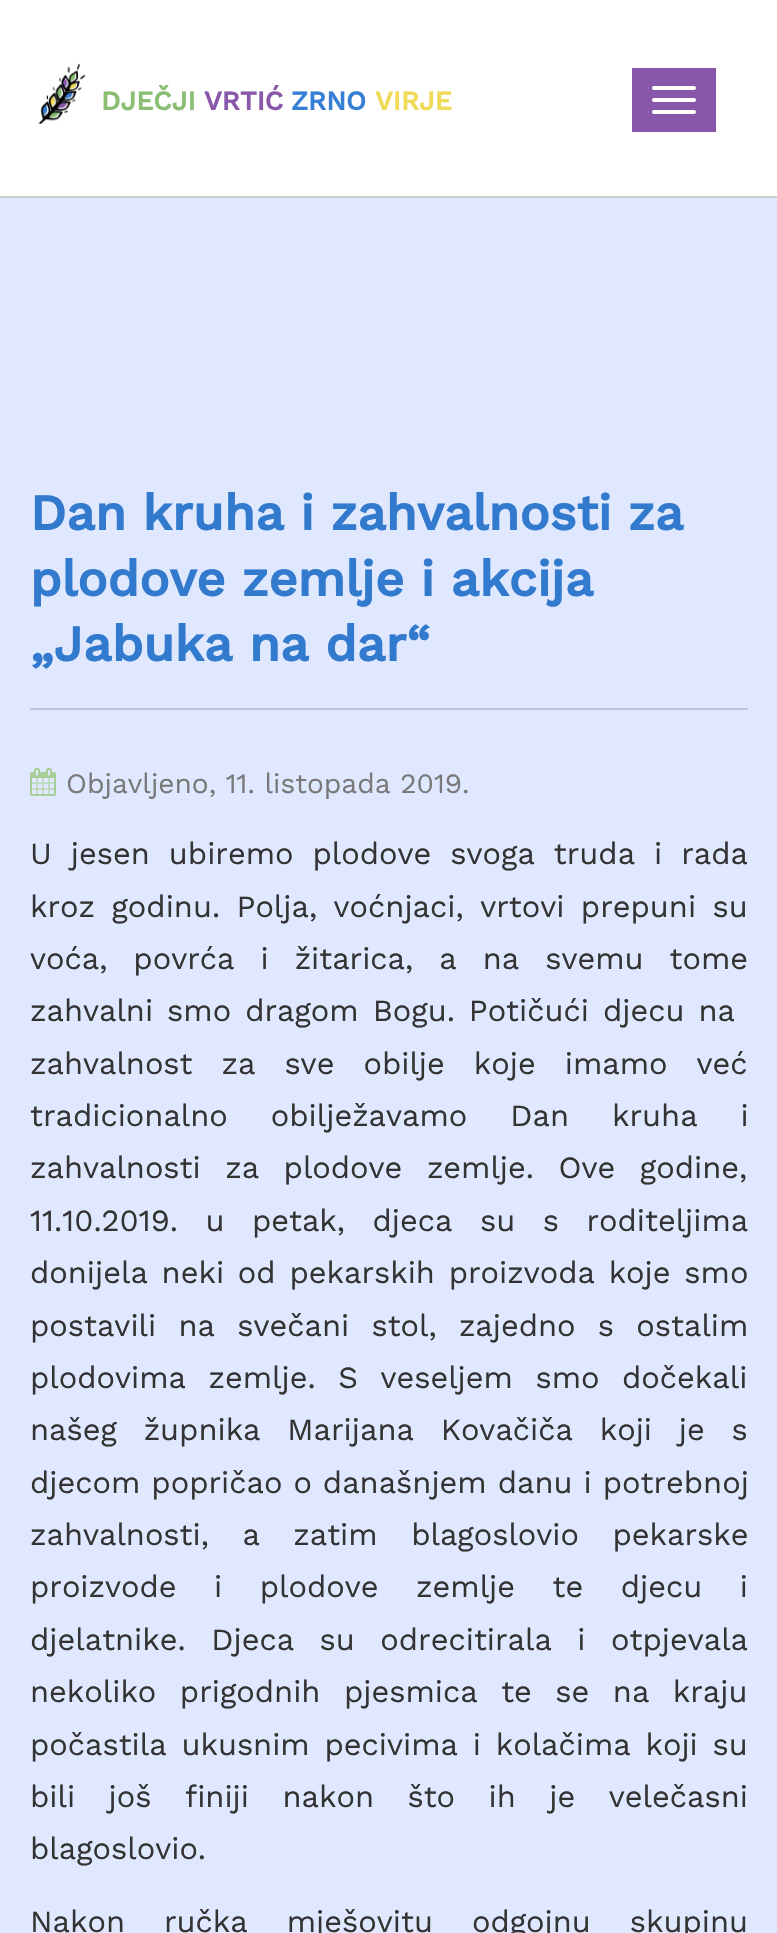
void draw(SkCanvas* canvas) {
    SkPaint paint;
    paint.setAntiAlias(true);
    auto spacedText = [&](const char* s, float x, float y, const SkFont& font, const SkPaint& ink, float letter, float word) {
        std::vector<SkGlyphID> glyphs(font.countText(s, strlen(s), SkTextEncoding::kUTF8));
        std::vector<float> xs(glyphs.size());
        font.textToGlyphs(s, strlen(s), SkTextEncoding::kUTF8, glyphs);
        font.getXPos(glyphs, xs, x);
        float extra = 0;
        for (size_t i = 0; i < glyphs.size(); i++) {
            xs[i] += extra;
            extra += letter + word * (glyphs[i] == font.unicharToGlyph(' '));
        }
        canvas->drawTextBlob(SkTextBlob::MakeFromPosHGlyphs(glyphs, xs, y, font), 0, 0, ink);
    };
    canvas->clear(0xFFE0E8FF);
    paint.setColor(0xFFFFFFFF);
    canvas->drawRect(SkRect::MakeXYWH(0, 0, 777, 196), paint);
    paint.setColor(0xFFCCCCCC);
    canvas->drawRect(SkRect::MakeXYWH(0, 196, 777, 2), paint);
    canvas->drawImageRect(SkImages::DeferredFromEncodedData(SkData::MakeFromFileName("img1.png")), SkRect::MakeXYWH(38, 63, 48, 61), SkSamplingOptions());
    SkFont font1(fontMgr->matchFamilyStyle("Work Sans", SkFontStyle::Bold()), 27);
    font1.setSubpixel(true);
    paint.setColor(0xFF8ABF73);
    canvas->drawString("DJEČJI", 101, 110, font1, paint);
    paint.setColor(0xFF8958A9);
    canvas->drawString("VRTIĆ", 204, 110, font1, paint);
    paint.setColor(0xFF377FD4);
    canvas->drawString("ZRNO", 291, 110, font1, paint);
    paint.setColor(0xFFEFDB58);
    canvas->drawString("VIRJE", 375, 110, font1, paint);
    paint.setColor(0xFF8957A9);
    canvas->drawRect(SkRect::MakeXYWH(632, 68, 84, 64), paint);
    paint.setColor(0xFFFFFFFF);
    canvas->drawRoundRect(SkRect::MakeXYWH(652, 86, 44, 4), 2, 2, paint);
    canvas->drawRoundRect(SkRect::MakeXYWH(652, 98, 44, 4), 2, 2, paint);
    canvas->drawRoundRect(SkRect::MakeXYWH(652, 110, 44, 4), 2, 2, paint);
    paint.setColor(0xFFBFC5D8);
    canvas->drawRect(SkRect::MakeXYWH(30, 708, 718, 2), paint);
    SkFont font2(fontMgr->matchFamilyStyle("Work Sans", SkFontStyle::Bold()), 50.4f);
    font2.setSubpixel(true);
    paint.setColor(0xFF327ACE);
    canvas->drawString("Dan kruha i zahvalnosti za", 30, 530, font2, paint);
    canvas->drawString("plodove zemlje i akcija", 30, 596, font2, paint);
    canvas->drawString("„Jabuka na dar“", 30, 661, font2, paint);
    canvas->drawImageRect(SkImages::DeferredFromEncodedData(SkData::MakeFromFileName("img2.png")), SkRect::MakeXYWH(30, 768, 26, 28), SkSamplingOptions());
    SkFont font3(fontMgr->matchFamilyStyle("Work Sans", SkFontStyle::Normal()), 28);
    font3.setSubpixel(true);
    paint.setColor(0xFF797979);
    canvas->drawString("Objavljeno, 11. listopada 2019.", 66, 793, font3, paint);
    SkFont font4(fontMgr->matchFamilyStyle("Work Sans", SkFontStyle::Normal()), 30.8f);
    font4.setSubpixel(true);
    paint.setColor(0xFF333333);
    spacedText("U jesen ubiremo plodove svoga truda i rada", 30, 864, font4, paint, 0, 8.5f);
    spacedText("kroz godinu. Polja, voćnjaci, vrtovi prepuni su", 30, 917, font4, paint, 0, 6);
    spacedText("voća, povrća i žitarica, a na svemu tome", 30, 969, font4, paint, 0, 15.5f);
    spacedText("zahvalni smo dragom Bogu. Potičući djecu na", 30, 1021, font4, paint, 0, 3.5f);
    spacedText("zahvalnost za sve obilje koje imamo već", 30, 1074, font4, paint, 0, 18.5f);
    spacedText("tradicionalno obilježavamo Dan kruha i", 30, 1126, font4, paint, 0, 32.5f);
    spacedText("zahvalnosti za plodove zemlje. Ove godine,", 30, 1178, font4, paint, 0, 14);
    spacedText("11.10.2019. u petak, djeca su s roditeljima", 30, 1231, font4, paint, 0, 17);
    spacedText("donijela neki od pekarskih proizvoda koje smo", 30, 1283, font4, paint, 0, 3.25f);
    spacedText("postavili na svečani stol, zajedno s ostalim", 30, 1336, font4, paint, 0, 11.75f);
    spacedText("plodovima zemlje. S veseljem smo dočekali", 30, 1388, font4, paint, 0, 12);
    spacedText("našeg župnika Marijana Kovačiča koji je s", 30, 1440, font4, paint, 0, 16.25f);
    spacedText("djecom popričao o današnjem danu i potrebnoj", 30, 1493, font4, paint, 0, 0.5f);
    spacedText("zahvalnosti, a zatim blagoslovio pekarske", 30, 1545, font4, paint, 0, 23);
    spacedText("proizvode i plodove zemlje te djecu i", 30, 1597, font4, paint, 0, 27);
    spacedText("djelatnike. Djeca su odrecitirala i otpjevala", 30, 1650, font4, paint, 0, 15);
    spacedText("nekoliko prigodnih pjesmica te se na kraju", 30, 1702, font4, paint, 0, 13);
    spacedText("počastila ukusnim pecivima i kolačima koji su", 30, 1755, font4, paint, 0, 4.25f);
    spacedText("bili još finiji nakon što ih je velečasni", 30, 1807, font4, paint, 0, 23);
    canvas->drawString("blagoslovio.", 30, 1859, font4, paint);
    spacedText("Nakon ručka mješovitu odgojnu skupinu", 30, 1932, font4, paint, 0, 28.5f);
}
